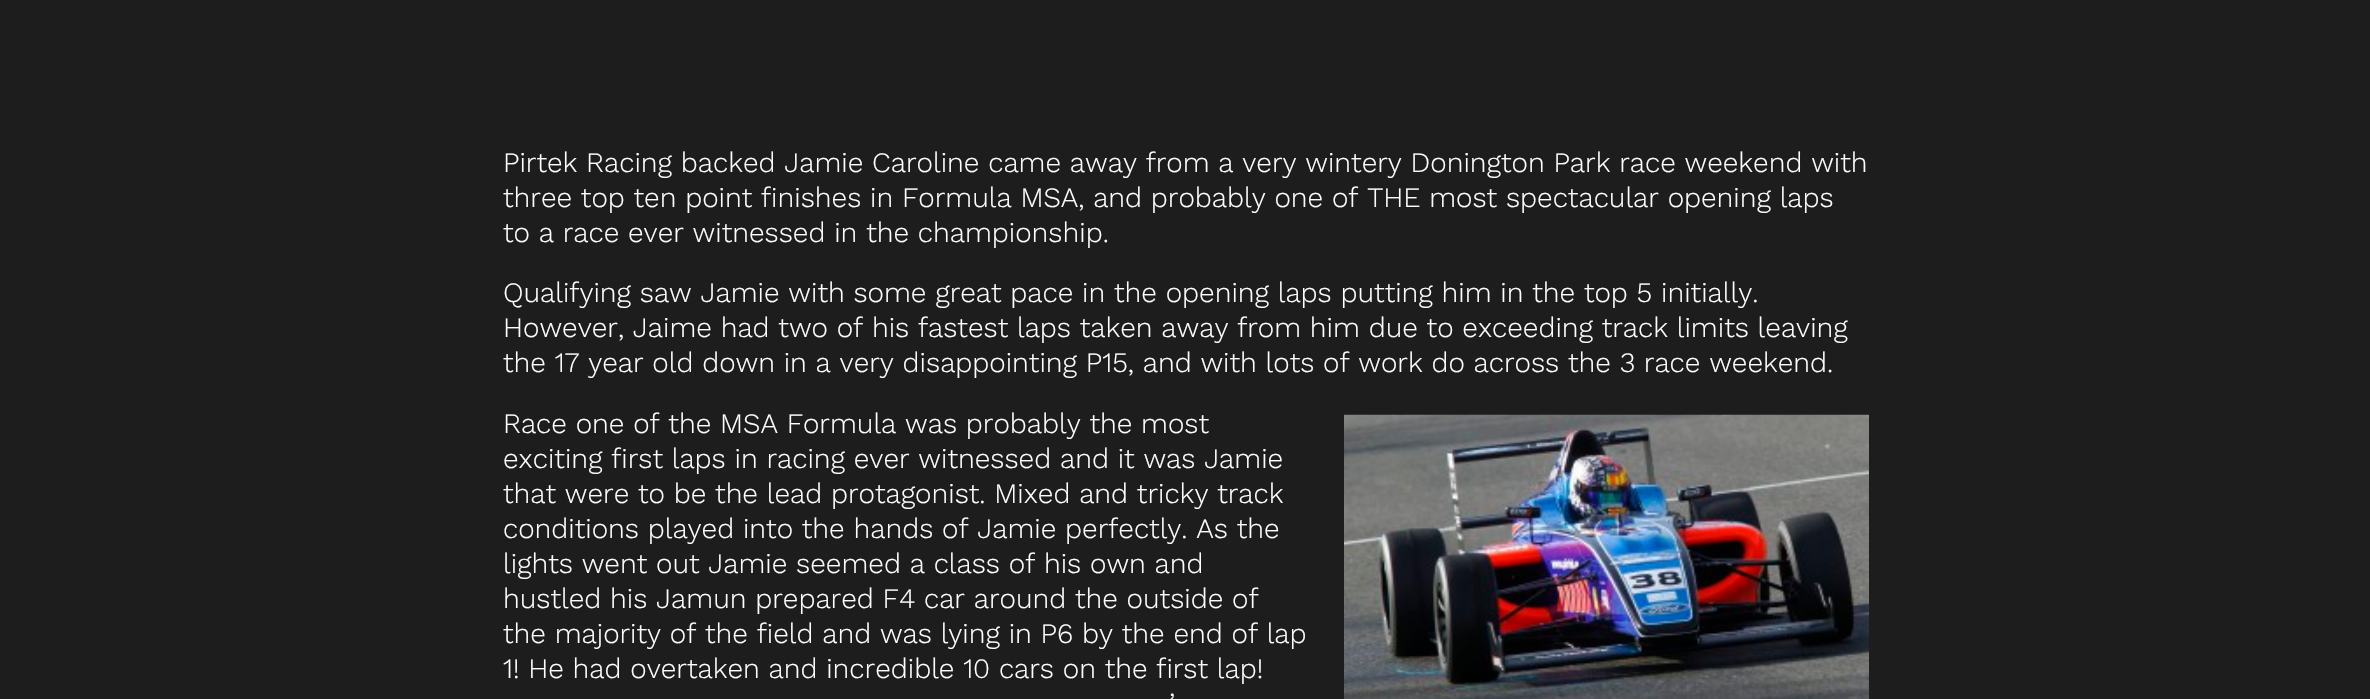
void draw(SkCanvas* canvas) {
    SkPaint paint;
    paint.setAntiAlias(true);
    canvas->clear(0xFF1D1D1D);
    SkFont font1(fontMgr->matchFamilyStyle("Work Sans", SkFontStyle(300, SkFontStyle::kNormal_Width, SkFontStyle::kUpright_Slant)), 28);
    font1.setSubpixel(true);
    paint.setColor(0xFFFFFFFF);
    canvas->drawString("Pirtek Racing backed Jamie Caroline came away from a very wintery Donington Park race weekend with", 503, 172, font1, paint);
    canvas->drawString("three top ten point finishes in Formula MSA, and probably one of THE most spectacular opening laps", 503, 207, font1, paint);
    canvas->drawString("to a race ever witnessed in the championship.", 503, 242, font1, paint);
    canvas->drawString("Qualifying saw Jamie with some great pace in the opening laps putting him in the top 5 initially.", 503, 302, font1, paint);
    canvas->drawString("However, Jaime had two of his fastest laps taken away from him due to exceeding track limits leaving", 503, 337, font1, paint);
    canvas->drawString("the 17 year old down in a very disappointing P15, and with lots of work do across the 3 race weekend.", 503, 372, font1, paint);
    canvas->drawString("Race one of the MSA Formula was probably the most", 503, 433, font1, paint);
    canvas->drawString("exciting first laps in racing ever witnessed and it was Jamie", 503, 468, font1, paint);
    canvas->drawString("that were to be the lead protagonist. Mixed and tricky track", 503, 503, font1, paint);
    canvas->drawString("conditions played into the hands of Jamie perfectly. As the", 503, 538, font1, paint);
    canvas->drawString("lights went out Jamie seemed a class of his own and", 503, 573, font1, paint);
    canvas->drawString("hustled his Jamun prepared F4 car around the outside of", 503, 608, font1, paint);
    canvas->drawString("the majority of the field and was lying in P6 by the end of lap", 503, 643, font1, paint);
    canvas->drawString("1! He had overtaken and incredible 10 cars on the first lap!", 503, 678, font1, paint);
    canvas->drawString("’", 1169, 713, font1, paint);
    canvas->drawImageRect(SkImages::DeferredFromEncodedData(SkData::MakeFromFileName("img1.png")), SkRect::MakeXYWH(1344, 414, 525, 285), SkSamplingOptions());
}
